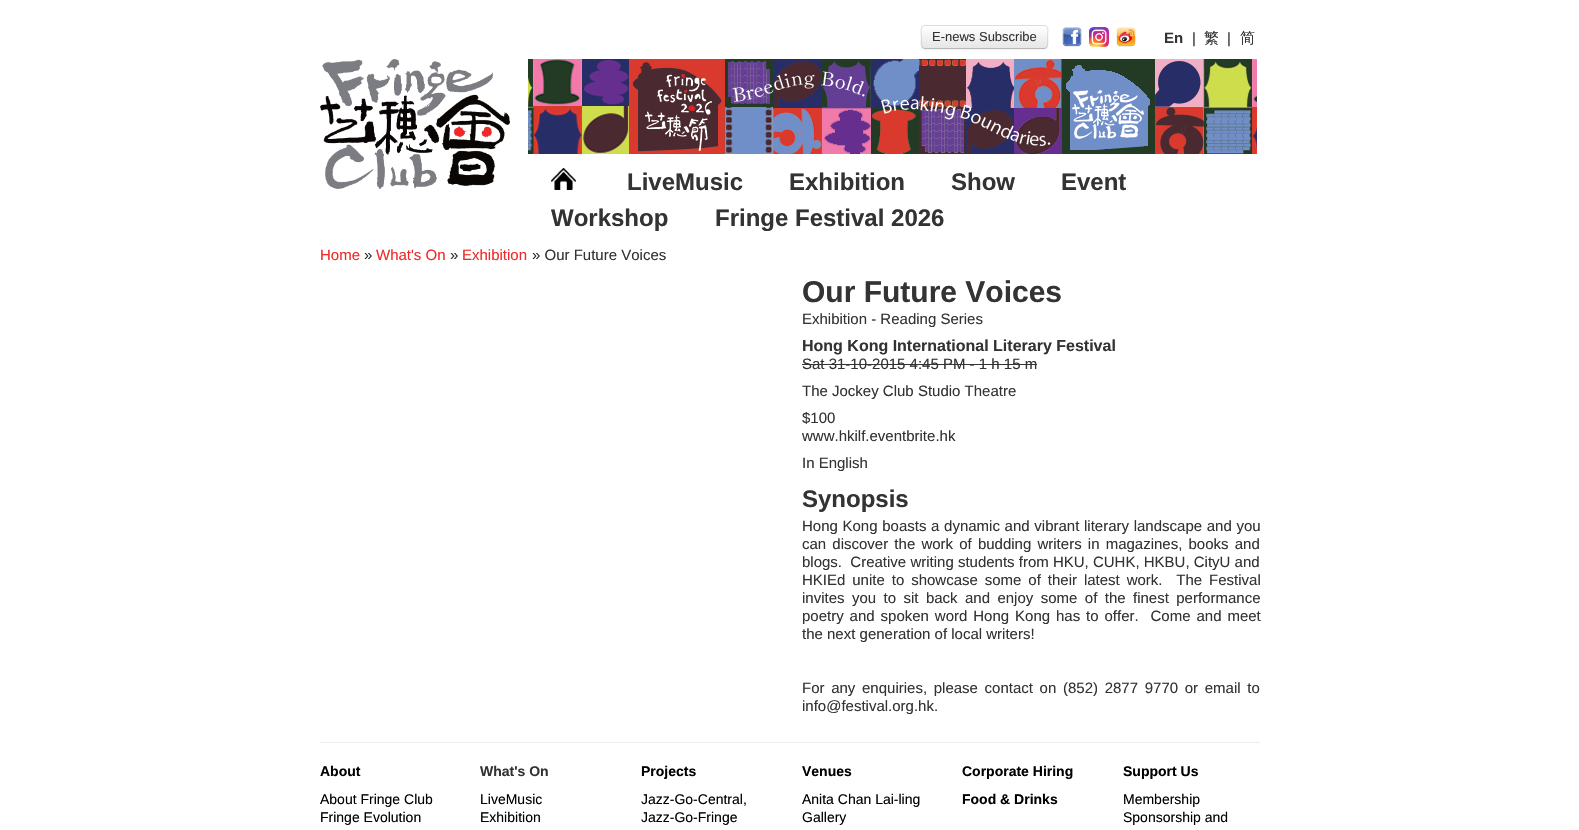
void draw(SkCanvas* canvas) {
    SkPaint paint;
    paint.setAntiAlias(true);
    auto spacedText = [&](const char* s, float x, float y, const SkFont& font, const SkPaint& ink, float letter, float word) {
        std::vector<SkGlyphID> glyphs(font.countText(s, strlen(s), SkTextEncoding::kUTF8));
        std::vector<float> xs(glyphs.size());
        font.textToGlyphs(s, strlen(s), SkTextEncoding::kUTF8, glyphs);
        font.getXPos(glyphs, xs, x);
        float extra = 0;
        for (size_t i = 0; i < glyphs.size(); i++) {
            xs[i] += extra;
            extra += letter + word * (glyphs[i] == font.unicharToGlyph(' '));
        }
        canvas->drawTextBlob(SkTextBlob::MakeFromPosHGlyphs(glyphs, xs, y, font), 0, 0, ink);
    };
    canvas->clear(0xFFFFFFFF);
    paint.setColor(0x0D000000);
    paint.setMaskFilter(SkMaskFilter::MakeBlur(kNormal_SkBlurStyle, 1));
    canvas->drawRoundRect(SkRect::MakeXYWH(921, 26, 127, 24), 4, 4, paint);
    paint.setMaskFilter(nullptr);
    paint.setColor(0xFFF5F5F5);
    canvas->drawRoundRect(SkRect::MakeXYWH(921, 25, 127, 24), 4, 4, paint);
    canvas->save();
    canvas->clipPath(SkPathBuilder().moveTo(925, 25).lineTo(1044, 25).cubicTo(1046, 25, 1048, 27, 1048, 29).lineTo(1048, 45).cubicTo(1048, 47, 1046, 49, 1044, 49).lineTo(925, 49).cubicTo(923, 49, 921, 47, 921, 45).lineTo(921, 29).cubicTo(921, 27, 923, 25, 925, 25).close().detach(), true);
    {
        const SkColor colors[] = {0xFFFFFFFF, 0xFFE6E6E6};
        const float stops[] = {0, 1};
        const SkPoint ends[] = {{985, 26}, {985, 48}};
        paint.setShader(SkGradientShader::MakeLinear(ends, colors, stops, 2, SkTileMode::kClamp));
        paint.setAlpha(255);
    }
    canvas->drawRect(SkRect::MakeXYWH(921, 26, 127, 22), paint);
    canvas->restore();
    paint.setStyle(SkPaint::kStroke_Style);
    paint.setStrokeWidth(1);
    paint.setShader(nullptr);
    paint.setColor(0xFFB8B8B8);
    canvas->drawPath(SkPathBuilder().moveTo(1046.5f, 47.5f).cubicTo(1046, 48, 1045, 48.5f, 1044, 48.5f).lineTo(925, 48.5f).cubicTo(924, 48.5f, 923, 48, 922.5f, 47.5f).detach(), paint);
    paint.setColor(0x1A000000);
    canvas->drawPath(SkPathBuilder().moveTo(922.5f, 47.5f).cubicTo(920.5f, 45.5f, 921.5f, 39.5f, 921.5f, 37).cubicTo(921.5f, 34, 919.5f, 25.5f, 925, 25.5f).lineTo(1044, 25.5f).cubicTo(1049.5f, 25.5f, 1047.5f, 34, 1047.5f, 37).cubicTo(1047.5f, 39.5f, 1048.5f, 45.5f, 1046.5f, 47.5f).detach(), paint);
    SkFont font1(fontMgr->matchFamilyStyle("Liberation Sans", SkFontStyle::Normal()), 13);
    font1.setSubpixel(true);
    paint.setStyle(SkPaint::kFill_Style);
    paint.setColor(0xFF333333);
    canvas->drawString("E-news Subscribe", 932, 41, font1, paint);
    canvas->drawImageRect(SkImages::DeferredFromEncodedData(SkData::MakeFromFileName("img1.png")), SkRect::MakeXYWH(1062, 27, 20, 20), SkSamplingOptions());
    canvas->drawImageRect(SkImages::DeferredFromEncodedData(SkData::MakeFromFileName("img2.png")), SkRect::MakeXYWH(1089, 27, 20, 20), SkSamplingOptions());
    canvas->drawImageRect(SkImages::DeferredFromEncodedData(SkData::MakeFromFileName("img3.png")), SkRect::MakeXYWH(1116, 27, 20, 20), SkSamplingOptions());
    SkFont font2(fontMgr->matchFamilyStyle("Liberation Sans", SkFontStyle::Bold()), 15);
    font2.setSubpixel(true);
    canvas->drawString("En", 1164, 43, font2, paint);
    SkFont font3(fontMgr->matchFamilyStyle("Liberation Sans", SkFontStyle::Normal()), 15);
    font3.setSubpixel(true);
    canvas->drawString("|", 1192, 43, font3, paint);
    SkFont font4(fontMgr->matchFamilyStyle("WenQuanYi Zen Hei", SkFontStyle(500, SkFontStyle::kNormal_Width, SkFontStyle::kUpright_Slant)), 15);
    font4.setSubpixel(true);
    canvas->drawString("繁", 1204, 43, font4, paint);
    canvas->drawString("|", 1227, 43, font3, paint);
    canvas->drawString("简", 1240, 43, font4, paint);
    canvas->drawImageRect(SkImages::DeferredFromEncodedData(SkData::MakeFromFileName("img4.png")), SkRect::MakeXYWH(320, 59, 190, 130), SkSamplingOptions());
    canvas->drawImageRect(SkImages::DeferredFromEncodedData(SkData::MakeFromFileName("img5.png")), SkRect::MakeXYWH(528, 59, 729, 95), SkSamplingOptions());
    canvas->drawImageRect(SkImages::DeferredFromEncodedData(SkData::MakeFromFileName("img6.png")), SkRect::MakeXYWH(551, 168, 25, 22), SkSamplingOptions());
    SkFont font5(fontMgr->matchFamilyStyle("Liberation Sans", SkFontStyle::Bold()), 24);
    font5.setSubpixel(true);
    canvas->drawString("LiveMusic", 627, 190, font5, paint);
    canvas->drawString("Exhibition", 789, 190, font5, paint);
    canvas->drawString("Show", 951, 190, font5, paint);
    canvas->drawString("Event", 1061, 190, font5, paint);
    canvas->drawString("Workshop", 551, 226, font5, paint);
    canvas->drawString("Fringe Festival 2026", 715, 226, font5, paint);
    paint.setColor(0xFFEE2A29);
    canvas->drawString("Home", 320, 260, font3, paint);
    paint.setColor(0xFF333333);
    canvas->drawString("»", 364, 260, font3, paint);
    paint.setColor(0xFFEE2A29);
    canvas->drawString("What's On", 376, 260, font3, paint);
    paint.setColor(0xFF333333);
    canvas->drawString("»", 450, 260, font3, paint);
    paint.setColor(0xFFEE2A29);
    canvas->drawString("Exhibition", 462, 260, font3, paint);
    paint.setColor(0xFF333333);
    canvas->drawString("» Our Future Voices", 532, 260, font3, paint);
    SkFont font6(fontMgr->matchFamilyStyle("Liberation Sans", SkFontStyle::Bold()), 30);
    font6.setSubpixel(true);
    canvas->drawString("Our Future Voices", 802, 302, font6, paint);
    canvas->drawString("Exhibition - Reading Series", 802, 324, font3, paint);
    SkFont font7(fontMgr->matchFamilyStyle("Liberation Sans", SkFontStyle::Bold()), 16);
    font7.setSubpixel(true);
    canvas->drawString("Hong Kong International Literary Festival", 802, 351, font7, paint);
    canvas->drawString("Sat 31-10-2015 4:45 PM - 1 h 15 m", 802, 369, font3, paint);
    canvas->drawRect(SkRect::MakeXYWH(802, 364, 235, 1), paint);
    canvas->drawString("The Jockey Club Studio Theatre", 802, 396, font3, paint);
    canvas->drawString("$100", 802, 423, font3, paint);
    canvas->drawString("www.hkilf.eventbrite.hk", 802, 441, font3, paint);
    canvas->drawString("In English", 802, 468, font3, paint);
    canvas->drawString("Synopsis", 802, 507, font5, paint);
    spacedText("Hong Kong boasts a dynamic and vibrant literary landscape and you", 802, 531, font3, paint, 0, 0.5f);
    spacedText("can discover the work of budding writers in magazines, books and", 802, 549, font3, paint, 0, 2);
    canvas->drawString("blogs.  Creative writing students from HKU, CUHK, HKBU, CityU and", 802, 567, font3, paint);
    spacedText("HKIEd unite to showcase some of their latest work.  The Festival", 802, 585, font3, paint, 0, 2.75f);
    spacedText("invites you to sit back and enjoy some of the finest performance", 802, 603, font3, paint, 0, 3.25f);
    spacedText("poetry and spoken word Hong Kong has to offer.  Come and meet", 802, 621, font3, paint, 0, 1.75f);
    canvas->drawString("the next generation of local writers!", 802, 639, font3, paint);
    spacedText("For any enquiries, please contact on (852) 2877 9770 or email to", 802, 693, font3, paint, 0, 2.5f);
    canvas->drawString("info@festival.org.hk.", 802, 711, font3, paint);
    paint.setColor(0xFFEEEEEE);
    canvas->drawRect(SkRect::MakeXYWH(320, 742, 940, 1), paint);
    SkFont font8(fontMgr->matchFamilyStyle("Liberation Sans", SkFontStyle::Bold()), 14);
    font8.setSubpixel(true);
    paint.setColor(0xFF000000);
    canvas->drawString("About", 320, 776, font8, paint);
    SkFont font9(fontMgr->matchFamilyStyle("Liberation Sans", SkFontStyle::Normal()), 14);
    font9.setSubpixel(true);
    canvas->drawString("About Fringe Club", 320, 804, font9, paint);
    canvas->drawString("Fringe Evolution", 320, 822, font9, paint);
    paint.setColor(0xFF333333);
    canvas->drawString("What's On", 480, 776, font8, paint);
    paint.setColor(0xFF000000);
    canvas->drawString("LiveMusic", 480, 804, font9, paint);
    canvas->drawString("Exhibition", 480, 822, font9, paint);
    canvas->drawString("Projects", 641, 776, font8, paint);
    canvas->drawString("Jazz-Go-Central,", 641, 804, font9, paint);
    canvas->drawString("Jazz-Go-Fringe", 641, 822, font9, paint);
    canvas->drawString("Venues", 802, 776, font8, paint);
    canvas->drawString("Anita Chan Lai-ling", 802, 804, font9, paint);
    canvas->drawString("Gallery", 802, 822, font9, paint);
    canvas->drawString("Corporate Hiring", 962, 776, font8, paint);
    canvas->drawString("Food & Drinks", 962, 804, font8, paint);
    canvas->drawString("Support Us", 1123, 776, font8, paint);
    canvas->drawString("Membership", 1123, 804, font9, paint);
    canvas->drawString("Sponsorship and", 1123, 822, font9, paint);
}
